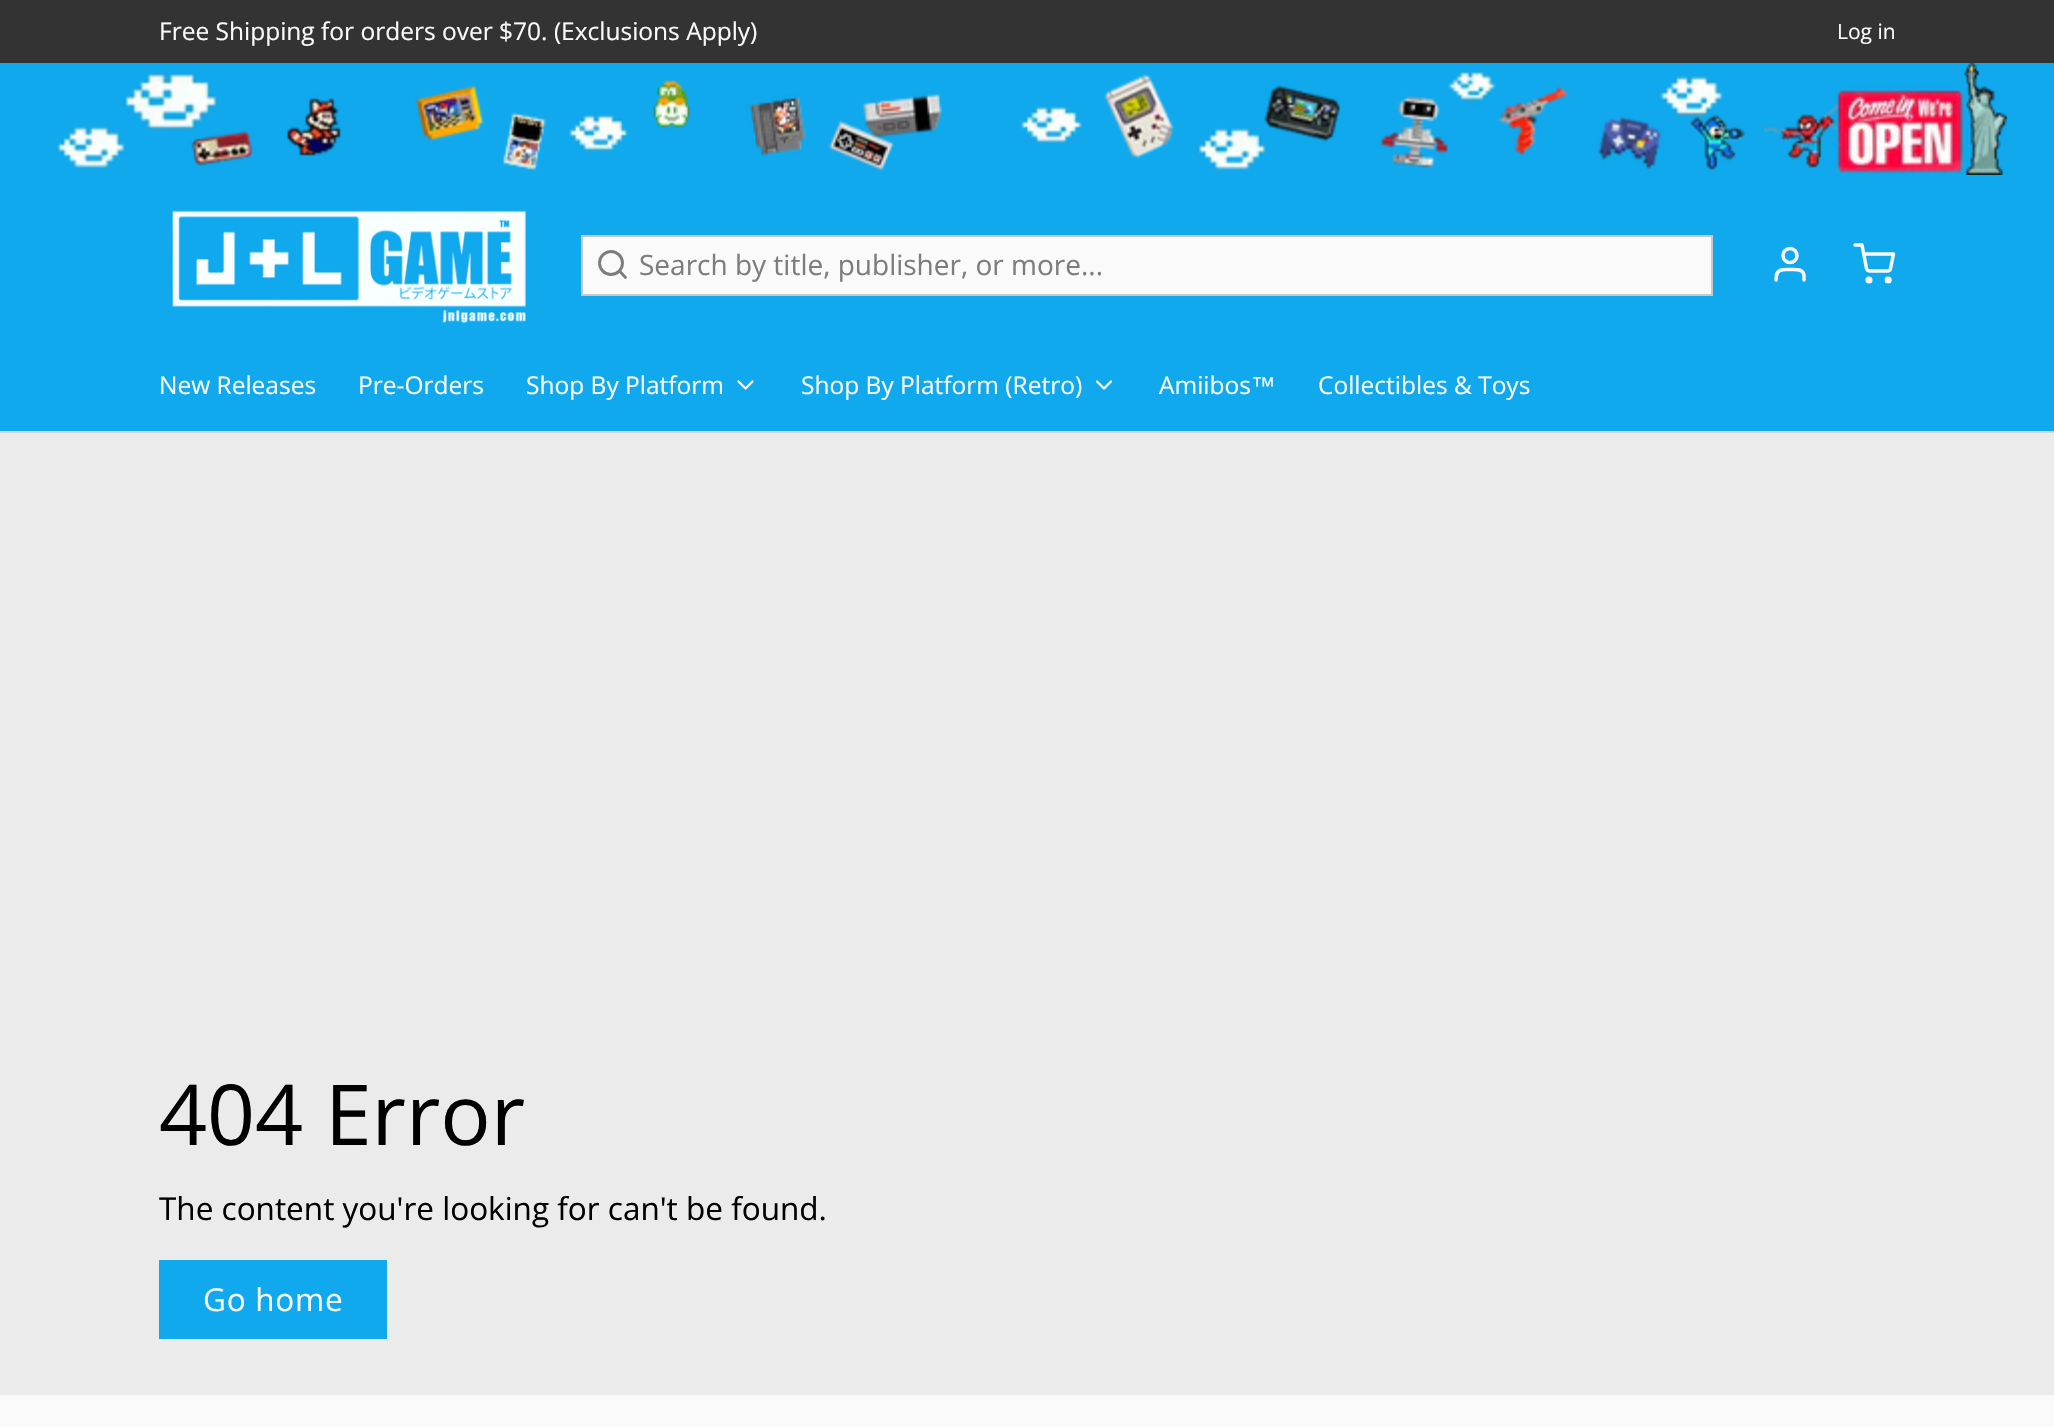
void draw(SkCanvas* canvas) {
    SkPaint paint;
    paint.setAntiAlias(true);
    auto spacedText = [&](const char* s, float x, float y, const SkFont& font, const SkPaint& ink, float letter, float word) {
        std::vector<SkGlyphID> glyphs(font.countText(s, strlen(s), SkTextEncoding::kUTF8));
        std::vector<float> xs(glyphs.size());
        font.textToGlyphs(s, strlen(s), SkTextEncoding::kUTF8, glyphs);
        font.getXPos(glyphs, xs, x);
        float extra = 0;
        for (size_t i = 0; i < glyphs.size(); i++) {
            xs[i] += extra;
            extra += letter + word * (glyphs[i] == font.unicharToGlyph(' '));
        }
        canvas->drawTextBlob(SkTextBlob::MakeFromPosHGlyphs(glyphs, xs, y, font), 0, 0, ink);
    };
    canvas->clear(0xFFFAFAFA);
    paint.setColor(0xFF333333);
    canvas->drawRect(SkRect::MakeXYWH(0, 0, 2054, 63), paint);
    SkFont font1(fontMgr->matchFamilyStyle("Open Sans", SkFontStyle::Normal()), 24.5f);
    font1.setSubpixel(true);
    paint.setColor(0xFFFAFAFA);
    canvas->drawString("Free Shipping for orders over $70. (Exclusions Apply)", 159, 40, font1, paint);
    SkFont font2(fontMgr->matchFamilyStyle("Open Sans", SkFontStyle::Normal()), 21);
    font2.setSubpixel(true);
    canvas->drawString("Log in", 1837, 39, font2, paint);
    paint.setColor(0xFF10A9ED);
    canvas->drawRect(SkRect::MakeXYWH(0, 63, 2054, 368), paint);
    canvas->drawImageRect(SkImages::DeferredFromEncodedData(SkData::MakeFromFileName("img1.png")), SkRect::MakeXYWH(57, 63, 1951, 112), SkSamplingOptions());
    paint.setColor(0xFFD7D7D7);
    canvas->drawRect(SkRect::MakeXYWH(0, 431, 2054, 2), paint);
    canvas->drawImageRect(SkImages::DeferredFromEncodedData(SkData::MakeFromFileName("img2.png")), SkRect::MakeXYWH(172, 210, 354, 114), SkSamplingOptions());
    paint.setColor(0xFFFAFAFA);
    canvas->drawRect(SkRect::MakeXYWH(582, 236, 1130, 59), paint);
    paint.setStyle(SkPaint::kStroke_Style);
    paint.setStrokeWidth(2);
    paint.setColor(0xFFC8C8C8);
    canvas->drawRect(SkRect::MakeXYWH(582, 236, 1130, 59), paint);
    paint.setStrokeWidth(2.9f);
    paint.setColor(0xFF7D7D7D);
    canvas->drawCircle(611, 263, 11.5f, paint);
    paint.setStrokeCap(SkPaint::kRound_Cap);
    paint.setStrokeJoin(SkPaint::kRound_Join);
    canvas->drawPath(SkPathBuilder().moveTo(625.5f, 277.5f).lineTo(619.5f, 271).detach(), paint);
    SkFont font3(fontMgr->matchFamilyStyle("Open Sans", SkFontStyle::Normal()), 28);
    font3.setSubpixel(true);
    paint.setStyle(SkPaint::kFill_Style);
    canvas->drawString("Search by title, publisher, or more...", 639, 275, font3, paint);
    paint.setStyle(SkPaint::kStroke_Style);
    paint.setStrokeWidth(3.5f);
    paint.setColor(0xFFFAFAFA);
    canvas->drawPath(SkPathBuilder().moveTo(1804, 280).lineTo(1804, 275).cubicTo(1802.5f, 268.5f, 1795.5f, 269.5f, 1790, 269.5f).cubicTo(1785, 269.5f, 1778, 268.5f, 1776.5f, 275).lineTo(1776, 280).detach(), paint);
    paint.setStrokeCap(SkPaint::kButt_Cap);
    paint.setStrokeJoin(SkPaint::kMiter_Join);
    canvas->drawCircle(1790, 255.5f, 7, paint);
    canvas->drawCircle(1869, 280, 1.8f, paint);
    canvas->drawCircle(1888.2f, 280, 1.8f, paint);
    paint.setStrokeCap(SkPaint::kRound_Cap);
    paint.setStrokeJoin(SkPaint::kRound_Join);
    canvas->drawPath(SkPathBuilder().moveTo(1855, 245).lineTo(1862, 245).lineTo(1866.5f, 268.5f).cubicTo(1867, 270, 1868.5f, 271.5f, 1870, 271).lineTo(1887, 271).cubicTo(1889, 271.5f, 1890.5f, 270, 1890.5f, 268.5f).lineTo(1893.5f, 254).lineTo(1864, 254).detach(), paint);
    paint.setStyle(SkPaint::kFill_Style);
    canvas->drawString("New Releases", 159, 394, font1, paint);
    canvas->drawString("Pre-Orders", 358, 394, font1, paint);
    canvas->drawString("Shop By Platform", 526, 394, font1, paint);
    paint.setStyle(SkPaint::kStroke_Style);
    paint.setStrokeWidth(2.3f);
    canvas->drawPath(SkPathBuilder().moveTo(738.5f, 381.5f).lineTo(745.5f, 388.5f).lineTo(752.5f, 381.5f).detach(), paint);
    paint.setStyle(SkPaint::kFill_Style);
    canvas->drawString("Shop By Platform (Retro)", 801, 394, font1, paint);
    paint.setStyle(SkPaint::kStroke_Style);
    canvas->drawPath(SkPathBuilder().moveTo(1097, 381.5f).lineTo(1104, 388.5f).lineTo(1111, 381.5f).detach(), paint);
    paint.setStyle(SkPaint::kFill_Style);
    canvas->drawString("Amiibos", 1159, 394, font1, paint);
    SkFont font4(fontMgr->matchFamilyStyle("Liberation Sans", SkFontStyle::Normal()), 24.5f);
    font4.setSubpixel(true);
    canvas->drawString("™", 1251, 394, font4, paint);
    canvas->drawString("Collectibles & Toys", 1318, 394, font1, paint);
    paint.setColor(0xFFEBEBEB);
    canvas->drawRect(SkRect::MakeXYWH(0, 433, 2054, 962), paint);
    SkFont font5(fontMgr->matchFamilyStyle("Open Sans", SkFontStyle::Normal()), 84);
    font5.setSubpixel(true);
    paint.setColor(0xFF000000);
    canvas->drawString("404 Error", 159, 1145, font5, paint);
    SkFont font6(fontMgr->matchFamilyStyle("Open Sans", SkFontStyle::Normal()), 31.5f);
    font6.setSubpixel(true);
    canvas->drawString("The content you're looking for can't be found.", 159, 1220, font6, paint);
    paint.setColor(0xFF10A9ED);
    canvas->drawRect(SkRect::MakeXYWH(159, 1260, 228, 79), paint);
    paint.setColor(0xFFFAFAFA);
    spacedText("Go home", 203, 1311, font6, paint, 0.75f, 0);
}
